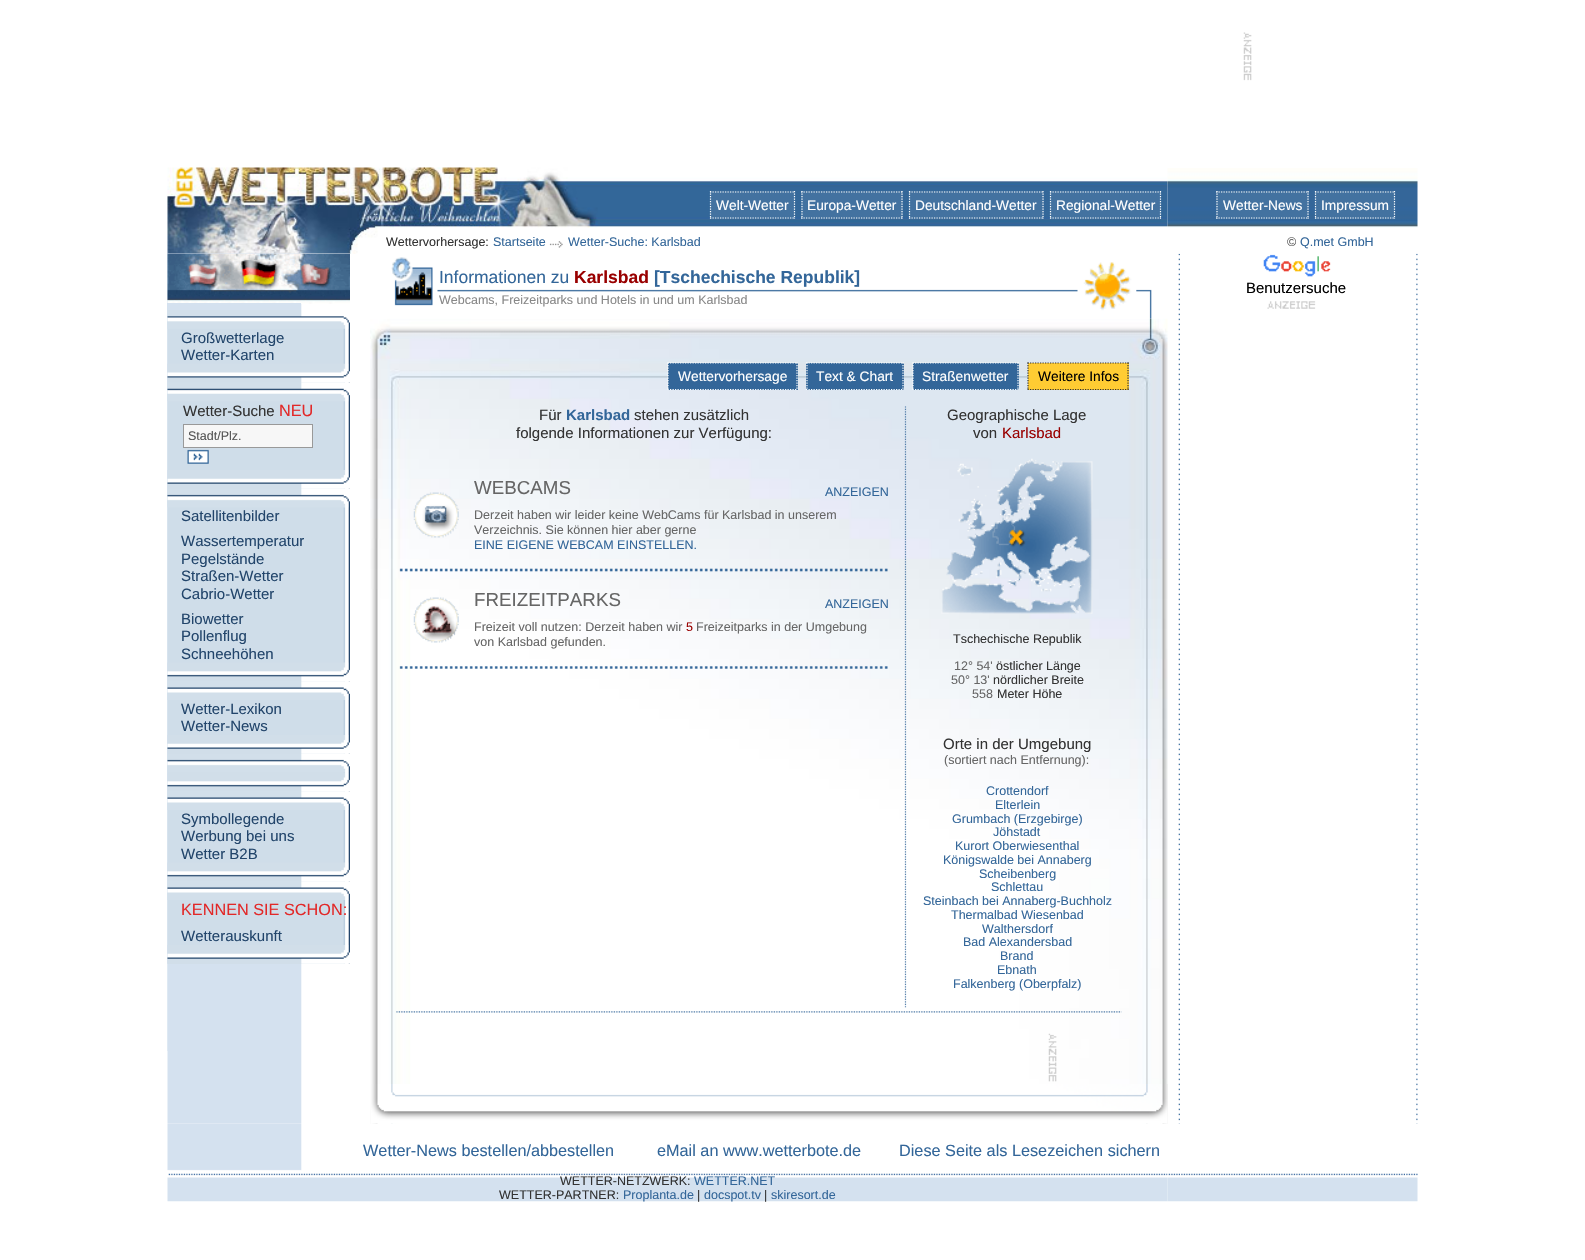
void draw(SkCanvas* canvas) {
    SkPaint paint;
    paint.setAntiAlias(true);
    canvas->clear(0xFFFFFFFF);
    canvas->drawImageRect(SkImages::DeferredFromEncodedData(SkData::MakeFromFileName("img1.png")), SkRect::MakeXYWH(1243, 32, 9, 49), SkSamplingOptions());
    canvas->drawImageRect(SkImages::DeferredFromEncodedData(SkData::MakeFromFileName("img2.png")), SkRect::MakeXYWH(167, 167, 1001, 87), SkSamplingOptions());
    paint.setColor(0xFF4372A0);
    canvas->drawRect(SkRect::MakeXYWH(710, 191, 85, 28), paint);
    SkFont font1(fontMgr->matchFamilyStyle("Liberation Sans", SkFontStyle::Normal()), 13.75f);
    font1.setSubpixel(true);
    paint.setColor(0xFFFFFFFF);
    canvas->drawString("Welt-Wetter", 716, 210, font1, paint);
    paint.setStyle(SkPaint::kStroke_Style);
    paint.setStrokeWidth(1.2f);
    paint.setPathEffect(SkDashPathEffect::Make({{1.25f, 1.25f}}, 0));
    canvas->drawPath(SkPathBuilder().moveTo(710, 192).lineTo(795, 192).detach(), paint);
    paint.setPathEffect(nullptr);
    paint.setPathEffect(SkDashPathEffect::Make({{1.25f, 1.25f}}, 0));
    canvas->drawPath(SkPathBuilder().moveTo(794.5f, 191).lineTo(794.5f, 219).detach(), paint);
    paint.setPathEffect(nullptr);
    paint.setPathEffect(SkDashPathEffect::Make({{1.25f, 1.25f}}, 0));
    canvas->drawPath(SkPathBuilder().moveTo(710, 218).lineTo(795, 218).detach(), paint);
    paint.setPathEffect(nullptr);
    paint.setPathEffect(SkDashPathEffect::Make({{1.25f, 1.25f}}, 0));
    canvas->drawPath(SkPathBuilder().moveTo(710.5f, 191).lineTo(710.5f, 219).detach(), paint);
    paint.setPathEffect(nullptr);
    paint.setStyle(SkPaint::kFill_Style);
    paint.setColor(0xFF4372A0);
    canvas->drawRect(SkRect::MakeXYWH(801, 191, 102, 28), paint);
    paint.setColor(0xFFFFFFFF);
    canvas->drawString("Europa-Wetter", 807, 210, font1, paint);
    paint.setStyle(SkPaint::kStroke_Style);
    paint.setPathEffect(SkDashPathEffect::Make({{1.25f, 1.25f}}, 0));
    canvas->drawPath(SkPathBuilder().moveTo(801, 192).lineTo(902.5f, 192).detach(), paint);
    paint.setPathEffect(nullptr);
    paint.setPathEffect(SkDashPathEffect::Make({{1.25f, 1.25f}}, 0));
    canvas->drawPath(SkPathBuilder().moveTo(902, 191).lineTo(902, 219).detach(), paint);
    paint.setPathEffect(nullptr);
    paint.setPathEffect(SkDashPathEffect::Make({{1.25f, 1.25f}}, 0));
    canvas->drawPath(SkPathBuilder().moveTo(801, 218).lineTo(902.5f, 218).detach(), paint);
    paint.setPathEffect(nullptr);
    paint.setPathEffect(SkDashPathEffect::Make({{1.25f, 1.25f}}, 0));
    canvas->drawPath(SkPathBuilder().moveTo(802, 191).lineTo(802, 219).detach(), paint);
    paint.setPathEffect(nullptr);
    paint.setStyle(SkPaint::kFill_Style);
    paint.setColor(0xFF4372A0);
    canvas->drawRect(SkRect::MakeXYWH(909, 191, 135, 28), paint);
    paint.setColor(0xFFFFFFFF);
    canvas->drawString("Deutschland-Wetter", 915, 210, font1, paint);
    paint.setStyle(SkPaint::kStroke_Style);
    paint.setPathEffect(SkDashPathEffect::Make({{1.25f, 1.25f}}, 0));
    canvas->drawPath(SkPathBuilder().moveTo(909, 192).lineTo(1044, 192).detach(), paint);
    paint.setPathEffect(nullptr);
    paint.setPathEffect(SkDashPathEffect::Make({{1.25f, 1.25f}}, 0));
    canvas->drawPath(SkPathBuilder().moveTo(1043, 191).lineTo(1043, 219).detach(), paint);
    paint.setPathEffect(nullptr);
    paint.setPathEffect(SkDashPathEffect::Make({{1.25f, 1.25f}}, 0));
    canvas->drawPath(SkPathBuilder().moveTo(909, 218).lineTo(1044, 218).detach(), paint);
    paint.setPathEffect(nullptr);
    paint.setPathEffect(SkDashPathEffect::Make({{1.25f, 1.25f}}, 0));
    canvas->drawPath(SkPathBuilder().moveTo(909.5f, 191).lineTo(909.5f, 219).detach(), paint);
    paint.setPathEffect(nullptr);
    paint.setStyle(SkPaint::kFill_Style);
    paint.setColor(0xFF4372A0);
    canvas->drawRect(SkRect::MakeXYWH(1050, 191, 111, 28), paint);
    paint.setColor(0xFFFFFFFF);
    canvas->drawString("Regional-Wetter", 1056, 210, font1, paint);
    paint.setStyle(SkPaint::kStroke_Style);
    paint.setPathEffect(SkDashPathEffect::Make({{1.25f, 1.25f}}, 0));
    canvas->drawPath(SkPathBuilder().moveTo(1050, 192).lineTo(1161, 192).detach(), paint);
    paint.setPathEffect(nullptr);
    paint.setPathEffect(SkDashPathEffect::Make({{1.25f, 1.25f}}, 0));
    canvas->drawPath(SkPathBuilder().moveTo(1160.5f, 191).lineTo(1160.5f, 219).detach(), paint);
    paint.setPathEffect(nullptr);
    paint.setPathEffect(SkDashPathEffect::Make({{1.25f, 1.25f}}, 0));
    canvas->drawPath(SkPathBuilder().moveTo(1050, 218).lineTo(1161, 218).detach(), paint);
    paint.setPathEffect(nullptr);
    paint.setPathEffect(SkDashPathEffect::Make({{1.25f, 1.25f}}, 0));
    canvas->drawPath(SkPathBuilder().moveTo(1050.5f, 191).lineTo(1050.5f, 219).detach(), paint);
    paint.setPathEffect(nullptr);
    SkFont font2(fontMgr->matchFamilyStyle("Liberation Sans", SkFontStyle::Normal()), 12.5f);
    font2.setSubpixel(true);
    paint.setStyle(SkPaint::kFill_Style);
    paint.setColor(0xFF333333);
    canvas->drawString("Wettervorhersage:", 386, 246, font2, paint);
    paint.setColor(0xFF336699);
    canvas->drawString("Startseite", 493, 246, font2, paint);
    canvas->drawImageRect(SkImages::DeferredFromEncodedData(SkData::MakeFromFileName("img3.png")), SkRect::MakeXYWH(549, 241, 14, 7), SkSamplingOptions());
    canvas->drawString("Wetter-Suche: Karlsbad", 568, 246, font2, paint);
    canvas->drawImageRect(SkImages::DeferredFromEncodedData(SkData::MakeFromFileName("img4.png")), SkRect::MakeXYWH(1167, 168, 251, 60), SkSamplingOptions());
    paint.setColor(0xFF4372A0);
    canvas->drawRect(SkRect::MakeXYWH(1216, 191, 93, 28), paint);
    paint.setColor(0xFFFFFFFF);
    canvas->drawString("Wetter-News", 1223, 210, font1, paint);
    paint.setStyle(SkPaint::kStroke_Style);
    paint.setPathEffect(SkDashPathEffect::Make({{1.25f, 1.25f}}, 0));
    canvas->drawPath(SkPathBuilder().moveTo(1216, 192).lineTo(1309, 192).detach(), paint);
    paint.setPathEffect(nullptr);
    paint.setPathEffect(SkDashPathEffect::Make({{1.25f, 1.25f}}, 0));
    canvas->drawPath(SkPathBuilder().moveTo(1308, 191).lineTo(1308, 219).detach(), paint);
    paint.setPathEffect(nullptr);
    paint.setPathEffect(SkDashPathEffect::Make({{1.25f, 1.25f}}, 0));
    canvas->drawPath(SkPathBuilder().moveTo(1216, 218).lineTo(1309, 218).detach(), paint);
    paint.setPathEffect(nullptr);
    paint.setPathEffect(SkDashPathEffect::Make({{1.25f, 1.25f}}, 0));
    canvas->drawPath(SkPathBuilder().moveTo(1217, 191).lineTo(1217, 219).detach(), paint);
    paint.setPathEffect(nullptr);
    paint.setStyle(SkPaint::kFill_Style);
    paint.setColor(0xFF4372A0);
    canvas->drawRect(SkRect::MakeXYWH(1315, 191, 80, 28), paint);
    paint.setColor(0xFFFFFFFF);
    canvas->drawString("Impressum", 1321, 210, font1, paint);
    paint.setStyle(SkPaint::kStroke_Style);
    paint.setPathEffect(SkDashPathEffect::Make({{1.25f, 1.25f}}, 0));
    canvas->drawPath(SkPathBuilder().moveTo(1315, 192).lineTo(1395, 192).detach(), paint);
    paint.setPathEffect(nullptr);
    paint.setPathEffect(SkDashPathEffect::Make({{1.25f, 1.25f}}, 0));
    canvas->drawPath(SkPathBuilder().moveTo(1394.5f, 191).lineTo(1394.5f, 219).detach(), paint);
    paint.setPathEffect(nullptr);
    paint.setPathEffect(SkDashPathEffect::Make({{1.25f, 1.25f}}, 0));
    canvas->drawPath(SkPathBuilder().moveTo(1315, 218).lineTo(1395, 218).detach(), paint);
    paint.setPathEffect(nullptr);
    paint.setPathEffect(SkDashPathEffect::Make({{1.25f, 1.25f}}, 0));
    canvas->drawPath(SkPathBuilder().moveTo(1315.5f, 191).lineTo(1315.5f, 219).detach(), paint);
    paint.setPathEffect(nullptr);
    paint.setStyle(SkPaint::kFill_Style);
    paint.setColor(0xFF555555);
    canvas->drawString("©", 1287, 246, font2, paint);
    paint.setColor(0xFF336699);
    canvas->drawString("Q.met GmbH", 1300, 246, font2, paint);
    canvas->drawImageRect(SkImages::DeferredFromEncodedData(SkData::MakeFromFileName("img5.png")), SkRect::MakeXYWH(167, 253, 183, 871), SkSamplingOptions());
    canvas->drawImageRect(SkImages::DeferredFromEncodedData(SkData::MakeFromFileName("img6.png")), SkRect::MakeXYWH(167, 253, 183, 798), SkSamplingOptions());
    canvas->drawImageRect(SkImages::DeferredFromEncodedData(SkData::MakeFromFileName("img7.png")), SkRect::MakeXYWH(167, 253, 183, 51), SkSamplingOptions());
    paint.setColor(0xFFD4E1EF);
    canvas->drawRect(SkRect::MakeXYWH(167, 303, 134, 7), paint);
    canvas->drawImageRect(SkImages::DeferredFromEncodedData(SkData::MakeFromFileName("img8.png")), SkRect::MakeXYWH(167, 310, 183, 73), SkSamplingOptions());
    canvas->drawImageRect(SkImages::DeferredFromEncodedData(SkData::MakeFromFileName("img9.png")), SkRect::MakeXYWH(167, 310, 183, 19), SkSamplingOptions());
    SkFont font3(fontMgr->matchFamilyStyle("Liberation Sans", SkFontStyle::Normal()), 15);
    font3.setSubpixel(true);
    paint.setColor(0xFF22456B);
    canvas->drawString("Großwetterlage", 181, 343, font3, paint);
    canvas->drawString("Wetter-Karten", 181, 360, font3, paint);
    canvas->drawImageRect(SkImages::DeferredFromEncodedData(SkData::MakeFromFileName("img11.png")), SkRect::MakeXYWH(167, 382, 183, 107), SkSamplingOptions());
    canvas->drawImageRect(SkImages::DeferredFromEncodedData(SkData::MakeFromFileName("img10.png")), SkRect::MakeXYWH(167, 363, 183, 20), SkSamplingOptions());
    canvas->drawImageRect(SkImages::DeferredFromEncodedData(SkData::MakeFromFileName("img12.png")), SkRect::MakeXYWH(167, 382, 183, 20), SkSamplingOptions());
    paint.setColor(0xFF333333);
    canvas->drawString("Wetter-Suche", 183, 416, font3, paint);
    SkFont font4(fontMgr->matchFamilyStyle("Liberation Sans", SkFontStyle::Normal()), 16.25f);
    font4.setSubpixel(true);
    paint.setColor(0xFFE22828);
    canvas->drawString("NEU", 279, 416, font4, paint);
    paint.setColor(0xFFF7F7F7);
    canvas->drawRect(SkRect::MakeXYWH(183.5f, 424.5f, 129, 23), paint);
    paint.setStyle(SkPaint::kStroke_Style);
    paint.setStrokeWidth(1);
    paint.setColor(0xFF999999);
    canvas->drawRect(SkRect::MakeXYWH(183.5f, 424.5f, 129, 23), paint);
    paint.setStyle(SkPaint::kFill_Style);
    paint.setColor(0xFF555555);
    canvas->drawString("Stadt/Plz.", 188, 440, font2, paint);
    canvas->drawImageRect(SkImages::DeferredFromEncodedData(SkData::MakeFromFileName("img13.png")), SkRect::MakeXYWH(187, 449, 22, 15), SkSamplingOptions());
    canvas->drawImageRect(SkImages::DeferredFromEncodedData(SkData::MakeFromFileName("img15.png")), SkRect::MakeXYWH(167, 488, 183, 194), SkSamplingOptions());
    canvas->drawImageRect(SkImages::DeferredFromEncodedData(SkData::MakeFromFileName("img14.png")), SkRect::MakeXYWH(167, 470, 183, 19), SkSamplingOptions());
    canvas->drawImageRect(SkImages::DeferredFromEncodedData(SkData::MakeFromFileName("img16.png")), SkRect::MakeXYWH(167, 488, 183, 20), SkSamplingOptions());
    paint.setColor(0xFF22456B);
    canvas->drawString("Satellitenbilder", 181, 521, font3, paint);
    canvas->drawString("Wassertemperatur", 181, 546, font3, paint);
    canvas->drawString("Pegelstände", 181, 564, font3, paint);
    canvas->drawString("Straßen-Wetter", 181, 581, font3, paint);
    canvas->drawString("Cabrio-Wetter", 181, 599, font3, paint);
    canvas->drawString("Biowetter", 181, 624, font3, paint);
    canvas->drawString("Pollenflug", 181, 641, font3, paint);
    canvas->drawString("Schneehöhen", 181, 659, font3, paint);
    canvas->drawImageRect(SkImages::DeferredFromEncodedData(SkData::MakeFromFileName("img18.png")), SkRect::MakeXYWH(167, 681, 183, 73), SkSamplingOptions());
    canvas->drawImageRect(SkImages::DeferredFromEncodedData(SkData::MakeFromFileName("img17.png")), SkRect::MakeXYWH(167, 662, 183, 20), SkSamplingOptions());
    canvas->drawImageRect(SkImages::DeferredFromEncodedData(SkData::MakeFromFileName("img19.png")), SkRect::MakeXYWH(167, 681, 183, 19), SkSamplingOptions());
    canvas->drawString("Wetter-Lexikon", 181, 714, font3, paint);
    canvas->drawString("Wetter-News", 181, 731, font3, paint);
    canvas->drawImageRect(SkImages::DeferredFromEncodedData(SkData::MakeFromFileName("img20.png")), SkRect::MakeXYWH(167, 753, 183, 39), SkSamplingOptions());
    canvas->drawImageRect(SkImages::DeferredFromEncodedData(SkData::MakeFromFileName("img14.png")), SkRect::MakeXYWH(167, 735, 183, 19), SkSamplingOptions());
    canvas->drawImageRect(SkImages::DeferredFromEncodedData(SkData::MakeFromFileName("img16.png")), SkRect::MakeXYWH(167, 753, 183, 20), SkSamplingOptions());
    canvas->drawImageRect(SkImages::DeferredFromEncodedData(SkData::MakeFromFileName("img22.png")), SkRect::MakeXYWH(167, 791, 183, 91), SkSamplingOptions());
    canvas->drawImageRect(SkImages::DeferredFromEncodedData(SkData::MakeFromFileName("img21.png")), SkRect::MakeXYWH(167, 772, 183, 20), SkSamplingOptions());
    canvas->drawImageRect(SkImages::DeferredFromEncodedData(SkData::MakeFromFileName("img19.png")), SkRect::MakeXYWH(167, 791, 183, 19), SkSamplingOptions());
    canvas->drawString("Symbollegende", 181, 824, font3, paint);
    canvas->drawString("Werbung bei uns", 181, 841, font3, paint);
    canvas->drawString("Wetter B2B", 181, 859, font3, paint);
    canvas->drawImageRect(SkImages::DeferredFromEncodedData(SkData::MakeFromFileName("img23.png")), SkRect::MakeXYWH(167, 881, 183, 83), SkSamplingOptions());
    canvas->drawImageRect(SkImages::DeferredFromEncodedData(SkData::MakeFromFileName("img17.png")), SkRect::MakeXYWH(167, 862, 183, 20), SkSamplingOptions());
    canvas->drawImageRect(SkImages::DeferredFromEncodedData(SkData::MakeFromFileName("img19.png")), SkRect::MakeXYWH(167, 881, 183, 19), SkSamplingOptions());
    paint.setColor(0xFFE22828);
    canvas->drawString("KENNEN SIE SCHON:", 181, 915, font4, paint);
    paint.setColor(0xFF22456B);
    canvas->drawString("Wetterauskunft", 181, 941, font3, paint);
    canvas->drawImageRect(SkImages::DeferredFromEncodedData(SkData::MakeFromFileName("img24.png")), SkRect::MakeXYWH(167, 945, 183, 19), SkSamplingOptions());
    canvas->drawImageRect(SkImages::DeferredFromEncodedData(SkData::MakeFromFileName("img25.png")), SkRect::MakeXYWH(391, 257, 761, 62), SkSamplingOptions());
    SkFont font5(fontMgr->matchFamilyStyle("Liberation Sans", SkFontStyle::Normal()), 17.5f);
    font5.setSubpixel(true);
    paint.setColor(0xFF336699);
    canvas->drawString("Informationen zu", 439, 283, font5, paint);
    SkFont font6(fontMgr->matchFamilyStyle("Liberation Sans", SkFontStyle::Bold()), 17.5f);
    font6.setSubpixel(true);
    paint.setColor(0xFF990000);
    canvas->drawString("Karlsbad", 574, 283, font6, paint);
    paint.setColor(0xFF336699);
    canvas->drawString("[Tschechische Republik]", 654, 283, font6, paint);
    paint.setColor(0xFF888888);
    canvas->drawString("Webcams, Freizeitparks und Hotels in und um Karlsbad", 439, 304, font2, paint);
    canvas->drawImageRect(SkImages::DeferredFromEncodedData(SkData::MakeFromFileName("img26.png")), SkRect::MakeXYWH(370, 318, 798, 806), SkSamplingOptions());
    paint.setColor(0xFF336699);
    canvas->drawRect(SkRect::MakeXYWH(668, 363, 130, 27), paint);
    paint.setColor(0xFFFFFFFF);
    canvas->drawString("Wettervorhersage", 678, 381, font1, paint);
    paint.setStyle(SkPaint::kStroke_Style);
    paint.setStrokeWidth(1.2f);
    paint.setPathEffect(SkDashPathEffect::Make({{1.25f, 1.25f}}, 0));
    canvas->drawPath(SkPathBuilder().moveTo(667.5f, 363).lineTo(797.5f, 363).detach(), paint);
    paint.setPathEffect(nullptr);
    paint.setPathEffect(SkDashPathEffect::Make({{1.25f, 1.25f}}, 0));
    canvas->drawPath(SkPathBuilder().moveTo(797, 362.5f).lineTo(797, 390).detach(), paint);
    paint.setPathEffect(nullptr);
    paint.setPathEffect(SkDashPathEffect::Make({{1.25f, 1.25f}}, 0));
    canvas->drawPath(SkPathBuilder().moveTo(667.5f, 389.5f).lineTo(797.5f, 389.5f).detach(), paint);
    paint.setPathEffect(nullptr);
    paint.setPathEffect(SkDashPathEffect::Make({{1.25f, 1.25f}}, 0));
    canvas->drawPath(SkPathBuilder().moveTo(668, 362.5f).lineTo(668, 390).detach(), paint);
    paint.setPathEffect(nullptr);
    paint.setStyle(SkPaint::kFill_Style);
    paint.setColor(0xFF336699);
    canvas->drawRect(SkRect::MakeXYWH(806, 363, 98, 27), paint);
    paint.setColor(0xFFFFFFFF);
    canvas->drawString("Text & Chart", 816, 381, font1, paint);
    paint.setStyle(SkPaint::kStroke_Style);
    paint.setPathEffect(SkDashPathEffect::Make({{1.25f, 1.25f}}, 0));
    canvas->drawPath(SkPathBuilder().moveTo(806, 363).lineTo(904, 363).detach(), paint);
    paint.setPathEffect(nullptr);
    paint.setPathEffect(SkDashPathEffect::Make({{1.25f, 1.25f}}, 0));
    canvas->drawPath(SkPathBuilder().moveTo(903, 362.5f).lineTo(903, 390).detach(), paint);
    paint.setPathEffect(nullptr);
    paint.setPathEffect(SkDashPathEffect::Make({{1.25f, 1.25f}}, 0));
    canvas->drawPath(SkPathBuilder().moveTo(806, 389.5f).lineTo(904, 389.5f).detach(), paint);
    paint.setPathEffect(nullptr);
    paint.setPathEffect(SkDashPathEffect::Make({{1.25f, 1.25f}}, 0));
    canvas->drawPath(SkPathBuilder().moveTo(807, 362.5f).lineTo(807, 390).detach(), paint);
    paint.setPathEffect(nullptr);
    paint.setStyle(SkPaint::kFill_Style);
    paint.setColor(0xFF336699);
    canvas->drawRect(SkRect::MakeXYWH(913, 363, 106, 27), paint);
    paint.setColor(0xFFFFFFFF);
    canvas->drawString("Straßenwetter", 922, 381, font1, paint);
    paint.setStyle(SkPaint::kStroke_Style);
    paint.setPathEffect(SkDashPathEffect::Make({{1.25f, 1.25f}}, 0));
    canvas->drawPath(SkPathBuilder().moveTo(912.5f, 363).lineTo(1019, 363).detach(), paint);
    paint.setPathEffect(nullptr);
    paint.setPathEffect(SkDashPathEffect::Make({{1.25f, 1.25f}}, 0));
    canvas->drawPath(SkPathBuilder().moveTo(1018, 362.5f).lineTo(1018, 390).detach(), paint);
    paint.setPathEffect(nullptr);
    paint.setPathEffect(SkDashPathEffect::Make({{1.25f, 1.25f}}, 0));
    canvas->drawPath(SkPathBuilder().moveTo(912.5f, 389.5f).lineTo(1019, 389.5f).detach(), paint);
    paint.setPathEffect(nullptr);
    paint.setPathEffect(SkDashPathEffect::Make({{1.25f, 1.25f}}, 0));
    canvas->drawPath(SkPathBuilder().moveTo(913, 362.5f).lineTo(913, 390).detach(), paint);
    paint.setPathEffect(nullptr);
    paint.setStyle(SkPaint::kFill_Style);
    paint.setColor(0xFFFFCC33);
    canvas->drawRect(SkRect::MakeXYWH(1028, 363, 101, 27), paint);
    paint.setColor(0xFF000000);
    canvas->drawString("Weitere Infos", 1038, 381, font1, paint);
    paint.setStyle(SkPaint::kStroke_Style);
    paint.setColor(0xFF333333);
    paint.setPathEffect(SkDashPathEffect::Make({{1.25f, 1.25f}}, 0));
    canvas->drawPath(SkPathBuilder().moveTo(1027.5f, 363).lineTo(1129, 363).detach(), paint);
    paint.setPathEffect(nullptr);
    paint.setPathEffect(SkDashPathEffect::Make({{1.25f, 1.25f}}, 0));
    canvas->drawPath(SkPathBuilder().moveTo(1128, 362.5f).lineTo(1128, 390).detach(), paint);
    paint.setPathEffect(nullptr);
    paint.setPathEffect(SkDashPathEffect::Make({{1.25f, 1.25f}}, 0));
    canvas->drawPath(SkPathBuilder().moveTo(1027.5f, 389.5f).lineTo(1129, 389.5f).detach(), paint);
    paint.setPathEffect(nullptr);
    paint.setPathEffect(SkDashPathEffect::Make({{1.25f, 1.25f}}, 0));
    canvas->drawPath(SkPathBuilder().moveTo(1028, 362.5f).lineTo(1028, 390).detach(), paint);
    paint.setPathEffect(nullptr);
    paint.setStyle(SkPaint::kFill_Style);
    canvas->drawString("Für", 539, 420, font3, paint);
    SkFont font7(fontMgr->matchFamilyStyle("Liberation Sans", SkFontStyle::Bold()), 15);
    font7.setSubpixel(true);
    paint.setColor(0xFF336699);
    canvas->drawString("Karlsbad", 566, 420, font7, paint);
    paint.setColor(0xFF333333);
    canvas->drawString("stehen zusätzlich", 634, 420, font3, paint);
    canvas->drawString("folgende Informationen zur Verfügung:", 516, 438, font3, paint);
    canvas->drawImageRect(SkImages::DeferredFromEncodedData(SkData::MakeFromFileName("img27.png")), SkRect::MakeXYWH(413, 492, 46, 46), SkSamplingOptions());
    SkFont font8(fontMgr->matchFamilyStyle("Liberation Sans", SkFontStyle::Normal()), 18.75f);
    font8.setSubpixel(true);
    paint.setColor(0xFF666666);
    canvas->drawString("WEBCAMS", 474, 494, font8, paint);
    paint.setColor(0xFF336699);
    canvas->drawString("ANZEIGEN", 825, 496, font2, paint);
    paint.setColor(0xFF666666);
    canvas->drawString("Derzeit haben wir leider keine WebCams für Karlsbad in unserem", 474, 519, font2, paint);
    canvas->drawString("Verzeichnis. Sie können hier aber gerne", 474, 534, font2, paint);
    paint.setColor(0xFF336699);
    canvas->drawString("EINE EIGENE WEBCAM EINSTELLEN.", 474, 549, font2, paint);
    canvas->drawImageRect(SkImages::DeferredFromEncodedData(SkData::MakeFromFileName("img28.png")), SkRect::MakeXYWH(399, 568, 489, 4), SkSamplingOptions());
    canvas->drawImageRect(SkImages::DeferredFromEncodedData(SkData::MakeFromFileName("img29.png")), SkRect::MakeXYWH(413, 597, 46, 46), SkSamplingOptions());
    paint.setColor(0xFF666666);
    canvas->drawString("FREIZEITPARKS", 474, 606, font8, paint);
    paint.setColor(0xFF336699);
    canvas->drawString("ANZEIGEN", 825, 608, font2, paint);
    paint.setColor(0xFF666666);
    canvas->drawString("Freizeit voll nutzen: Derzeit haben wir", 474, 631, font2, paint);
    paint.setColor(0xFF990000);
    canvas->drawString("5", 686, 631, font2, paint);
    paint.setColor(0xFF666666);
    canvas->drawString("Freizeitparks in der Umgebung", 696, 631, font2, paint);
    canvas->drawString("von Karlsbad gefunden.", 474, 646, font2, paint);
    canvas->drawImageRect(SkImages::DeferredFromEncodedData(SkData::MakeFromFileName("img30.png")), SkRect::MakeXYWH(399, 666, 489, 3), SkSamplingOptions());
    canvas->drawImageRect(SkImages::DeferredFromEncodedData(SkData::MakeFromFileName("img31.png")), SkRect::MakeXYWH(904, 406, 3, 602), SkSamplingOptions());
    paint.setColor(0xFF333333);
    canvas->drawString("Geographische Lage", 947, 420, font3, paint);
    canvas->drawString("von", 973, 438, font3, paint);
    paint.setColor(0xFF990000);
    canvas->drawString("Karlsbad", 1002, 438, font3, paint);
    canvas->drawImageRect(SkImages::DeferredFromEncodedData(SkData::MakeFromFileName("img32.png")), SkRect::MakeXYWH(941, 458, 152, 156), SkSamplingOptions());
    paint.setColor(0xFF333333);
    canvas->drawString("Tschechische Republik", 953, 643, font2, paint);
    paint.setColor(0xFF666666);
    canvas->drawString("12° 54'", 954, 670, font2, paint);
    paint.setColor(0xFF333333);
    canvas->drawString("östlicher Länge", 996, 670, font2, paint);
    paint.setColor(0xFF666666);
    canvas->drawString("50° 13'", 951, 684, font2, paint);
    paint.setColor(0xFF333333);
    canvas->drawString("nördlicher Breite", 993, 684, font2, paint);
    paint.setColor(0xFF666666);
    canvas->drawString("558", 972, 698, font2, paint);
    paint.setColor(0xFF333333);
    canvas->drawString("Meter Höhe", 997, 698, font2, paint);
    canvas->drawString("Orte in der Umgebung", 943, 749, font3, paint);
    paint.setColor(0xFF666666);
    canvas->drawString("(sortiert nach Entfernung):", 944, 764, font2, paint);
    paint.setColor(0xFF336699);
    canvas->drawString("Crottendorf", 986, 795, font2, paint);
    canvas->drawString("Elterlein", 995, 809, font2, paint);
    canvas->drawString("Grumbach (Erzgebirge)", 952, 823, font2, paint);
    canvas->drawString("Jöhstadt", 993, 836, font2, paint);
    canvas->drawString("Kurort Oberwiesenthal", 955, 850, font2, paint);
    canvas->drawString("Königswalde bei Annaberg", 943, 864, font2, paint);
    canvas->drawString("Scheibenberg", 979, 878, font2, paint);
    canvas->drawString("Schlettau", 991, 891, font2, paint);
    canvas->drawString("Steinbach bei Annaberg-Buchholz", 923, 905, font2, paint);
    canvas->drawString("Thermalbad Wiesenbad", 951, 919, font2, paint);
    canvas->drawString("Walthersdorf", 982, 933, font2, paint);
    canvas->drawString("Bad Alexandersbad", 963, 946, font2, paint);
    canvas->drawString("Brand", 1000, 960, font2, paint);
    canvas->drawString("Ebnath", 997, 974, font2, paint);
    canvas->drawString("Falkenberg (Oberpfalz)", 953, 988, font2, paint);
    canvas->drawImageRect(SkImages::DeferredFromEncodedData(SkData::MakeFromFileName("img33.png")), SkRect::MakeXYWH(396, 1011, 726, 2), SkSamplingOptions());
    canvas->drawImageRect(SkImages::DeferredFromEncodedData(SkData::MakeFromFileName("img34.png")), SkRect::MakeXYWH(1048, 1033, 9, 49), SkSamplingOptions());
    canvas->drawImageRect(SkImages::DeferredFromEncodedData(SkData::MakeFromFileName("img35.png")), SkRect::MakeXYWH(371, 1084, 797, 40), SkSamplingOptions());
    canvas->drawImageRect(SkImages::DeferredFromEncodedData(SkData::MakeFromFileName("img36.png")), SkRect::MakeXYWH(1178, 253, 2, 871), SkSamplingOptions());
    canvas->drawImageRect(SkImages::DeferredFromEncodedData(SkData::MakeFromFileName("img37.png")), SkRect::MakeXYWH(1263, 254, 68, 23), SkSamplingOptions());
    paint.setColor(0xFF000000);
    canvas->drawString("Benutzersuche", 1246, 293, font3, paint);
    canvas->drawImageRect(SkImages::DeferredFromEncodedData(SkData::MakeFromFileName("img38.png")), SkRect::MakeXYWH(1267, 301, 49, 8), SkSamplingOptions());
    canvas->drawImageRect(SkImages::DeferredFromEncodedData(SkData::MakeFromFileName("img39.png")), SkRect::MakeXYWH(1416, 253, 2, 871), SkSamplingOptions());
    canvas->drawImageRect(SkImages::DeferredFromEncodedData(SkData::MakeFromFileName("img40.png")), SkRect::MakeXYWH(167, 1124, 1001, 78), SkSamplingOptions());
    paint.setColor(0xFF336699);
    canvas->drawString("Wetter-News bestellen/abbestellen", 363, 1156, font4, paint);
    canvas->drawString("eMail an www.wetterbote.de", 657, 1156, font4, paint);
    canvas->drawString("Diese Seite als Lesezeichen sichern", 899, 1156, font4, paint);
    paint.setColor(0xFF333333);
    canvas->drawString("WETTER-NETZWERK:", 560, 1185, font2, paint);
    paint.setColor(0xFF336699);
    canvas->drawString("WETTER.NET", 694, 1185, font2, paint);
    paint.setColor(0xFF333333);
    canvas->drawString("WETTER-PARTNER:", 499, 1199, font2, paint);
    paint.setColor(0xFF336699);
    canvas->drawString("Proplanta.de", 623, 1199, font2, paint);
    paint.setColor(0xFF333333);
    canvas->drawString("|", 697, 1199, font2, paint);
    paint.setColor(0xFF336699);
    canvas->drawString("docspot.tv", 704, 1199, font2, paint);
    paint.setColor(0xFF333333);
    canvas->drawString("|", 764, 1199, font2, paint);
    paint.setColor(0xFF336699);
    canvas->drawString("skiresort.de", 771, 1199, font2, paint);
    canvas->drawImageRect(SkImages::DeferredFromEncodedData(SkData::MakeFromFileName("img41.png")), SkRect::MakeXYWH(1167, 1173, 13, 29), SkSamplingOptions());
    canvas->drawImageRect(SkImages::DeferredFromEncodedData(SkData::MakeFromFileName("img42.png")), SkRect::MakeXYWH(1180, 1173, 225, 29), SkSamplingOptions());
    canvas->drawImageRect(SkImages::DeferredFromEncodedData(SkData::MakeFromFileName("img43.png")), SkRect::MakeXYWH(1405, 1173, 13, 29), SkSamplingOptions());
}
